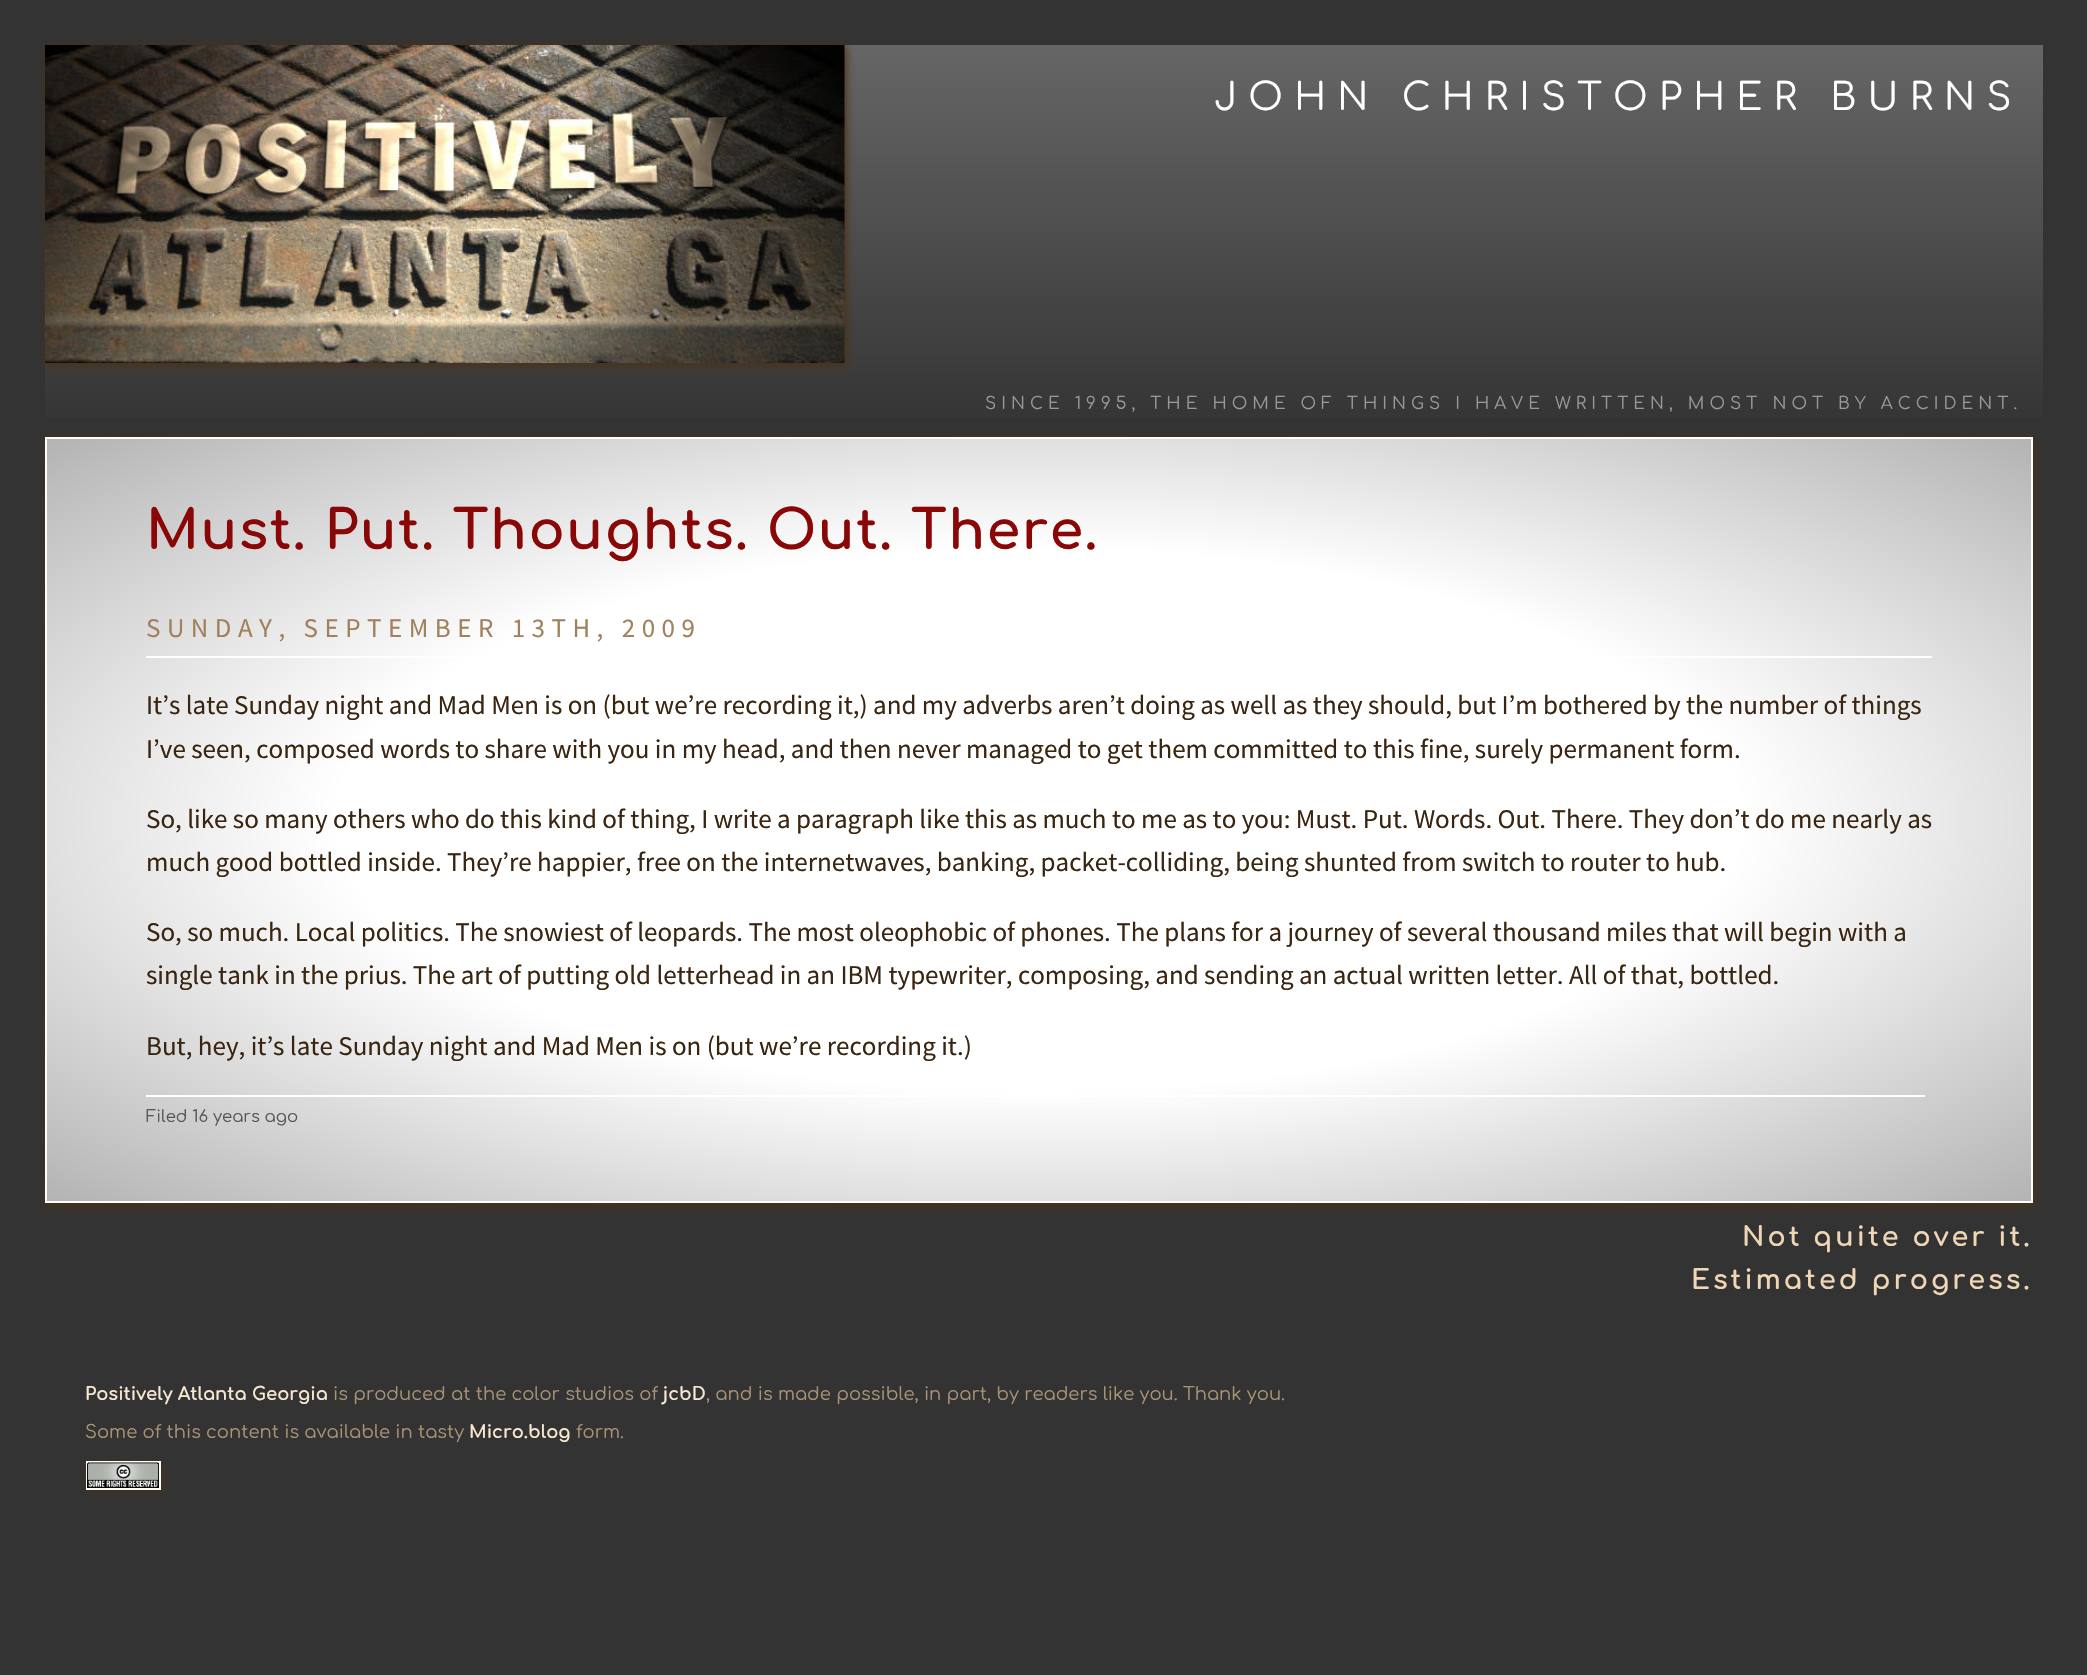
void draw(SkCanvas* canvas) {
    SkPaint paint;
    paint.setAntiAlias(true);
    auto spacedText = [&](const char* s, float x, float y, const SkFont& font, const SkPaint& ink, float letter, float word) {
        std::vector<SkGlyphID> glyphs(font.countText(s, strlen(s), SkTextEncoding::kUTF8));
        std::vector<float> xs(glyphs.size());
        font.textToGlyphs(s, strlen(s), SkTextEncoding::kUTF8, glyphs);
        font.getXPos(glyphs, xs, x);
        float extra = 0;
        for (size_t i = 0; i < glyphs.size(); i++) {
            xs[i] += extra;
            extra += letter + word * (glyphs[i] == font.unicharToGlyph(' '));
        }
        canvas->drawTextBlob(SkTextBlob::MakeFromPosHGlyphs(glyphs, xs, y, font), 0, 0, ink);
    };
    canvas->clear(0xFF333333);
    {
        const SkColor colors[] = {0xFF666666, 0xFF333333};
        const float stops[] = {0, 1};
        const SkPoint ends[] = {{1044, 45}, {1044, 437}};
        paint.setShader(SkGradientShader::MakeLinear(ends, colors, stops, 2, SkTileMode::kClamp));
        paint.setAlpha(255);
    }
    canvas->drawRect(SkRect::MakeXYWH(45, 45, 1998, 373), paint);
    paint.setShader(nullptr);
    paint.setColor(0xFF4D2F11);
    paint.setMaskFilter(SkMaskFilter::MakeBlur(kNormal_SkBlurStyle, 4.5f));
    canvas->drawRect(SkRect::MakeXYWH(47, 47, 799, 318), paint);
    paint.setMaskFilter(nullptr);
    canvas->drawImageRect(SkImages::DeferredFromEncodedData(SkData::MakeFromFileName("img1.png")), SkRect::MakeXYWH(45, 45, 800, 318), SkSamplingOptions());
    SkFont font1(fontMgr->matchFamilyStyle("Comfortaa", SkFontStyle::Normal()), 37.6f);
    font1.setSubpixel(true);
    paint.setColor(0xFFFFFFFF);
    spacedText("JOHN CHRISTOPHER BURNS", 1214, 110, font1, paint, 11.25f, 0);
    SkFont font2(fontMgr->matchFamilyStyle("Comfortaa", SkFontStyle::Normal()), 16.88f);
    font2.setSubpixel(true);
    paint.setColor(0xFF999999);
    spacedText("SINCE 1995, THE HOME OF THINGS I HAVE WRITTEN, MOST NOT BY ACCIDENT.", 985, 409, font2, paint, 5.05f, 0);
    paint.setColor(0xFF4D2F11);
    paint.setMaskFilter(SkMaskFilter::MakeBlur(kNormal_SkBlurStyle, 4.5f));
    canvas->drawRect(SkRect::MakeXYWH(47, 438, 1987, 767), paint);
    paint.setMaskFilter(nullptr);
    {
        const SkColor colors[] = {0xFFFFFFFF, 0xFFB3B3B3};
        const float stops[] = {0.5f, 1};
        SkMatrix m = SkMatrix::Translate(1039, 820).preScale(1403, 540);
        paint.setShader(SkGradientShader::MakeRadial({0, 0}, 1, colors, stops, 2, SkTileMode::kClamp, 0, &m));
        paint.setAlpha(255);
    }
    canvas->drawRect(SkRect::MakeXYWH(47, 439, 1984, 762), paint);
    paint.setStyle(SkPaint::kStroke_Style);
    paint.setStrokeWidth(2);
    paint.setShader(nullptr);
    paint.setColor(0xFFFFFFFF);
    canvas->drawRect(SkRect::MakeXYWH(46, 438, 1986, 764), paint);
    SkFont font3(fontMgr->matchFamilyStyle("Comfortaa", SkFontStyle::Bold()), 54);
    font3.setSubpixel(true);
    paint.setStyle(SkPaint::kFill_Style);
    paint.setColor(0xFF8A0707);
    spacedText("Must. Put. Thoughts. Out. There.", 146, 549, font3, paint, 1.5f, 0);
    paint.setColor(0xFFFFFFFF);
    canvas->drawRect(SkRect::MakeXYWH(146, 656, 1786, 2), paint);
    SkFont font4(fontMgr->matchFamilyStyle("Source Sans Pro", SkFontStyle::Normal()), 27);
    font4.setSubpixel(true);
    paint.setColor(0xFFA0815C);
    spacedText("SUNDAY, SEPTEMBER 13TH, 2009", 146, 637, font4, paint, 6.5f, 0);
    paint.setColor(0xFF392510);
    canvas->drawString("It’s late Sunday night and Mad Men is on (but we’re recording it,) and my adverbs aren’t doing as well as they should, but I’m bothered by the number of things", 146, 714, font4, paint);
    canvas->drawString("I’ve seen, composed words to share with you in my head, and then never managed to get them committed to this fine, surely permanent form.", 146, 758, font4, paint);
    canvas->drawString("So, like so many others who do this kind of thing, I write a paragraph like this as much to me as to you: Must. Put. Words. Out. There. They don’t do me nearly as", 146, 828, font4, paint);
    canvas->drawString("much good bottled inside. They’re happier, free on the internetwaves, banking, packet-colliding, being shunted from switch to router to hub.", 146, 871, font4, paint);
    canvas->drawString("So, so much. Local politics. The snowiest of leopards. The most oleophobic of phones. The plans for a journey of several thousand miles that will begin with a", 146, 941, font4, paint);
    canvas->drawString("single tank in the prius. The art of putting old letterhead in an IBM typewriter, composing, and sending an actual written letter. All of that, bottled.", 146, 984, font4, paint);
    canvas->drawString("But, hey, it’s late Sunday night and Mad Men is on (but we’re recording it.)", 146, 1055, font4, paint);
    paint.setColor(0xFFFFFFFF);
    canvas->drawRect(SkRect::MakeXYWH(146, 1095, 1779, 2), paint);
    SkFont font5(fontMgr->matchFamilyStyle("Comfortaa", SkFontStyle::Normal()), 16.5f);
    font5.setSubpixel(true);
    paint.setColor(0xFF555555);
    canvas->drawString("Filed 16 years ago", 146, 1122, font5, paint);
    SkFont font6(fontMgr->matchFamilyStyle("Comfortaa", SkFontStyle::Bold()), 27);
    font6.setSubpixel(true);
    paint.setColor(0xFFEFD6B5);
    spacedText("Not quite over it.", 1742, 1246, font6, paint, 3, 0);
    spacedText("Estimated progress.", 1691, 1289, font6, paint, 3, 0);
    SkFont font7(fontMgr->matchFamilyStyle("Comfortaa", SkFontStyle::Bold()), 18);
    font7.setSubpixel(true);
    paint.setColor(0xFFF9E8D1);
    canvas->drawString("Positively Atlanta Georgia", 85, 1400, font7, paint);
    SkFont font8(fontMgr->matchFamilyStyle("Comfortaa", SkFontStyle::Normal()), 18);
    font8.setSubpixel(true);
    paint.setColor(0xFFAA9375);
    canvas->drawString("is produced at the color studios of", 333, 1400, font8, paint);
    paint.setColor(0xFFF9E8D1);
    canvas->drawString("jcbD", 663, 1400, font7, paint);
    paint.setColor(0xFFAA9375);
    canvas->drawString(", and is made possible, in part, by readers like you. Thank you.", 706, 1400, font8, paint);
    canvas->drawString("Some of this content is available in tasty", 85, 1438, font8, paint);
    paint.setColor(0xFFF9E8D1);
    canvas->drawString("Micro.blog", 469, 1438, font7, paint);
    paint.setColor(0xFFAA9375);
    canvas->drawString("form.", 576, 1438, font8, paint);
    paint.setColor(0xFF4D2F11);
    paint.setMaskFilter(SkMaskFilter::MakeBlur(kNormal_SkBlurStyle, 4.5f));
    canvas->drawRect(SkRect::MakeXYWH(87, 1463, 75, 28), paint);
    paint.setMaskFilter(nullptr);
    paint.setStyle(SkPaint::kStroke_Style);
    paint.setColor(0xFFFFFFFF);
    canvas->drawRect(SkRect::MakeXYWH(87, 1462, 73, 27), paint);
    canvas->drawImageRect(SkImages::DeferredFromEncodedData(SkData::MakeFromFileName("img2.png")), SkRect::MakeXYWH(87, 1462, 72, 26), SkSamplingOptions());
}
